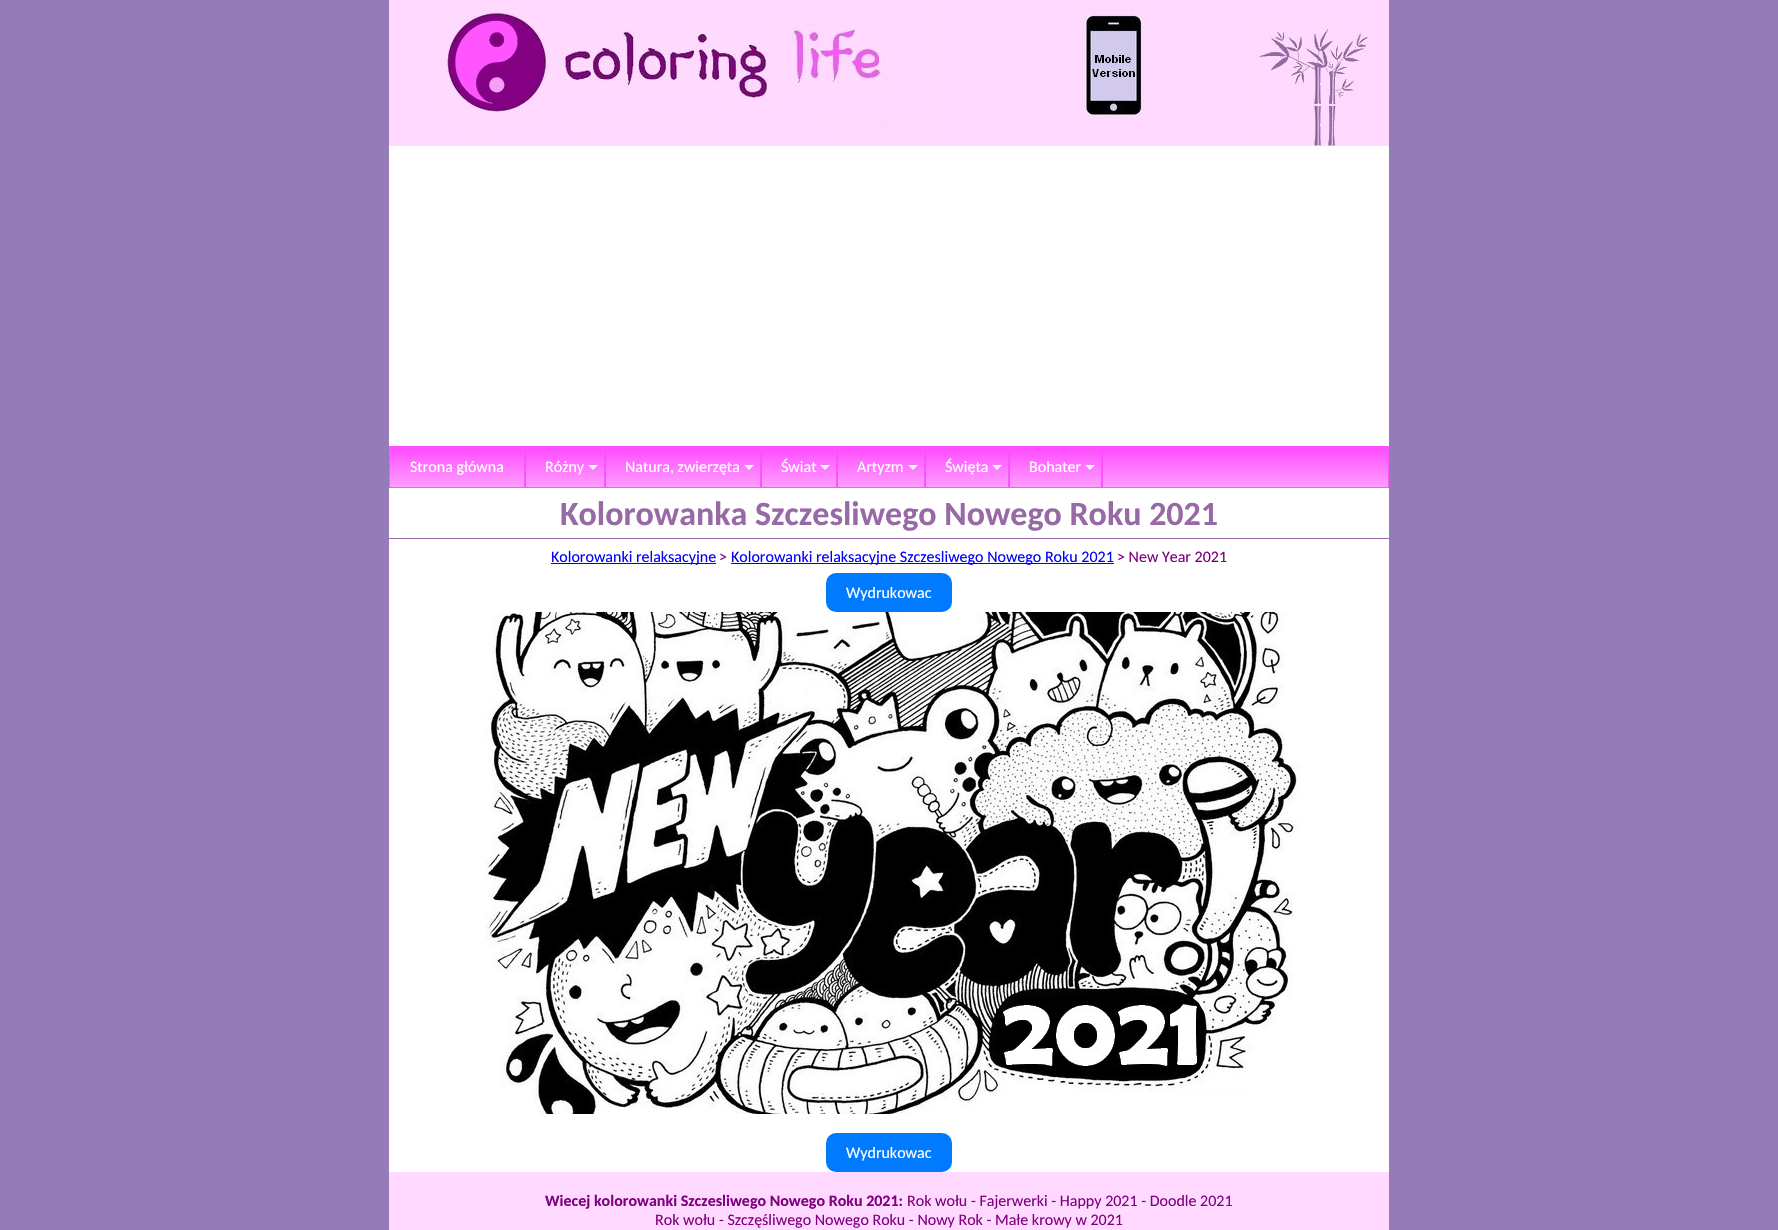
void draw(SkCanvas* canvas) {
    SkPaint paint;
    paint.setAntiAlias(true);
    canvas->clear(0xFF957BB7);
    paint.setColor(0xFFFFFFFF);
    canvas->drawRect(SkRect::MakeXYWH(389, 0, 1000, 1172), paint);
    paint.setColor(0xFFFFD9FF);
    canvas->drawRect(SkRect::MakeXYWH(389, 0, 1000, 146), paint);
    canvas->drawImageRect(SkImages::DeferredFromEncodedData(SkData::MakeFromFileName("img1.png")), SkRect::MakeXYWH(445, 4, 484, 125), SkSamplingOptions());
    canvas->drawImageRect(SkImages::DeferredFromEncodedData(SkData::MakeFromFileName("img2.png")), SkRect::MakeXYWH(1083, 8, 64, 112), SkSamplingOptions());
    canvas->drawImageRect(SkImages::DeferredFromEncodedData(SkData::MakeFromFileName("img3.png")), SkRect::MakeXYWH(1254, 21, 122, 125), SkSamplingOptions());
    {
        const SkColor colors[] = {0xFFFF4BFF, 0xFFFF9DFF};
        const float stops[] = {0, 1};
        const SkPoint ends[] = {{889, 447}, {889, 487}};
        paint.setShader(SkGradientShader::MakeLinear(ends, colors, stops, 2, SkTileMode::kClamp));
        paint.setAlpha(255);
    }
    canvas->drawRect(SkRect::MakeXYWH(390, 447, 998, 40), paint);
    paint.setStyle(SkPaint::kStroke_Style);
    paint.setStrokeWidth(1);
    paint.setShader(nullptr);
    paint.setColor(0xFFFF55FE);
    canvas->drawRect(SkRect::MakeXYWH(389.5f, 446.5f, 999, 41), paint);
    paint.setStyle(SkPaint::kFill_Style);
    canvas->drawRect(SkRect::MakeXYWH(524, 447, 1, 40), paint);
    SkFont font1(fontMgr->matchFamilyStyle("Carlito", SkFontStyle::Normal()), 16);
    font1.setSubpixel(true);
    paint.setColor(0xFFFFFFFF);
    canvas->drawString("Strona główna", 410, 472, font1, paint);
    paint.setColor(0xFFFF4BFF);
    canvas->drawRect(SkRect::MakeXYWH(525, 446, 1, 42), paint);
    paint.setColor(0xFFFF55FE);
    canvas->drawRect(SkRect::MakeXYWH(604, 447, 1, 40), paint);
    paint.setColor(0xFFFFFFFF);
    canvas->drawString("Różny", 545, 472, font1, paint);
    canvas->drawPath(SkPathBuilder().moveTo(588, 465).lineTo(598, 465).lineTo(593, 470).close().detach(), paint);
    paint.setColor(0xFFFF4BFF);
    canvas->drawRect(SkRect::MakeXYWH(605, 446, 1, 42), paint);
    paint.setColor(0xFFFF55FE);
    canvas->drawRect(SkRect::MakeXYWH(760, 447, 1, 40), paint);
    paint.setColor(0xFFFFFFFF);
    canvas->drawString("Natura, zwierzęta", 625, 472, font1, paint);
    canvas->drawPath(SkPathBuilder().moveTo(744, 465).lineTo(754, 465).lineTo(749, 470).close().detach(), paint);
    paint.setColor(0xFFFF4BFF);
    canvas->drawRect(SkRect::MakeXYWH(761, 446, 1, 42), paint);
    paint.setColor(0xFFFF55FE);
    canvas->drawRect(SkRect::MakeXYWH(836, 447, 1, 40), paint);
    paint.setColor(0xFFFFFFFF);
    canvas->drawString("Świat", 781, 472, font1, paint);
    canvas->drawPath(SkPathBuilder().moveTo(820, 465).lineTo(830, 465).lineTo(825, 470).close().detach(), paint);
    paint.setColor(0xFFFF4BFF);
    canvas->drawRect(SkRect::MakeXYWH(837, 446, 1, 42), paint);
    paint.setColor(0xFFFF55FE);
    canvas->drawRect(SkRect::MakeXYWH(924, 447, 1, 40), paint);
    paint.setColor(0xFFFFFFFF);
    canvas->drawString("Artyzm", 857, 472, font1, paint);
    canvas->drawPath(SkPathBuilder().moveTo(908, 465).lineTo(918, 465).lineTo(913, 470).close().detach(), paint);
    paint.setColor(0xFFFF4BFF);
    canvas->drawRect(SkRect::MakeXYWH(925, 446, 1, 42), paint);
    paint.setColor(0xFFFF55FE);
    canvas->drawRect(SkRect::MakeXYWH(1008, 447, 1, 40), paint);
    paint.setColor(0xFFFFFFFF);
    canvas->drawString("Święta", 945, 472, font1, paint);
    canvas->drawPath(SkPathBuilder().moveTo(992, 465).lineTo(1002, 465).lineTo(997, 470).close().detach(), paint);
    paint.setColor(0xFFFF4BFF);
    canvas->drawRect(SkRect::MakeXYWH(1009, 446, 1, 42), paint);
    paint.setColor(0xFFFF55FE);
    canvas->drawRect(SkRect::MakeXYWH(1101, 447, 1, 40), paint);
    paint.setColor(0xFFFFFFFF);
    canvas->drawString("Bohater", 1029, 472, font1, paint);
    canvas->drawPath(SkPathBuilder().moveTo(1085, 465).lineTo(1095, 465).lineTo(1090, 470).close().detach(), paint);
    paint.setColor(0xFFFF4BFF);
    canvas->drawRect(SkRect::MakeXYWH(1102, 446, 1, 42), paint);
    paint.setColor(0xFF976AA5);
    canvas->drawRect(SkRect::MakeXYWH(389, 538, 1000, 1), paint);
    SkFont font2(fontMgr->matchFamilyStyle("Carlito", SkFontStyle::Bold()), 34);
    font2.setSubpixel(true);
    canvas->drawString("Kolorowanka Szczesliwego Nowego Roku 2021", 560, 525, font2, paint);
    paint.setColor(0xFF0000FF);
    canvas->drawRect(SkRect::MakeXYWH(551, 563, 165, 1), paint);
    canvas->drawString("Kolorowanki relaksacyjne", 551, 562, font1, paint);
    paint.setColor(0xFF800080);
    canvas->drawString(">", 719, 562, font1, paint);
    paint.setColor(0xFF0000FF);
    canvas->drawRect(SkRect::MakeXYWH(731, 563, 383, 1), paint);
    canvas->drawString("Kolorowanki relaksacyjne Szczesliwego Nowego Roku 2021", 731, 562, font1, paint);
    paint.setColor(0xFF800080);
    canvas->drawString("> New Year 2021", 1117, 562, font1, paint);
    paint.setColor(0xFF007BFF);
    canvas->drawRoundRect(SkRect::MakeXYWH(826, 573, 126, 39), 10, 10, paint);
    paint.setColor(0xFFFFFFFF);
    canvas->drawString("Wydrukowac", 846, 598, font1, paint);
    canvas->drawImageRect(SkImages::DeferredFromEncodedData(SkData::MakeFromFileName("img4.png")), SkRect::MakeXYWH(485, 612, 816, 502), SkSamplingOptions());
    paint.setColor(0xFF007BFF);
    canvas->drawRoundRect(SkRect::MakeXYWH(826, 1133, 126, 39), 10, 10, paint);
    paint.setColor(0xFFFFFFFF);
    canvas->drawString("Wydrukowac", 846, 1158, font1, paint);
    paint.setColor(0xFFFFD9FF);
    canvas->drawRect(SkRect::MakeXYWH(389, 1172, 1000, 58), paint);
    SkFont font3(fontMgr->matchFamilyStyle("Carlito", SkFontStyle::Bold()), 16);
    font3.setSubpixel(true);
    paint.setColor(0xFF800080);
    canvas->drawString("Wiecej kolorowanki Szczesliwego Nowego Roku 2021:", 545, 1206, font3, paint);
    canvas->drawString("Rok wołu - Fajerwerki - Happy 2021 - Doodle 2021", 907, 1206, font1, paint);
    canvas->drawString("Rok wołu - Szczęśliwego Nowego Roku - Nowy Rok - Małe krowy w 2021", 655, 1225, font1, paint);
}
